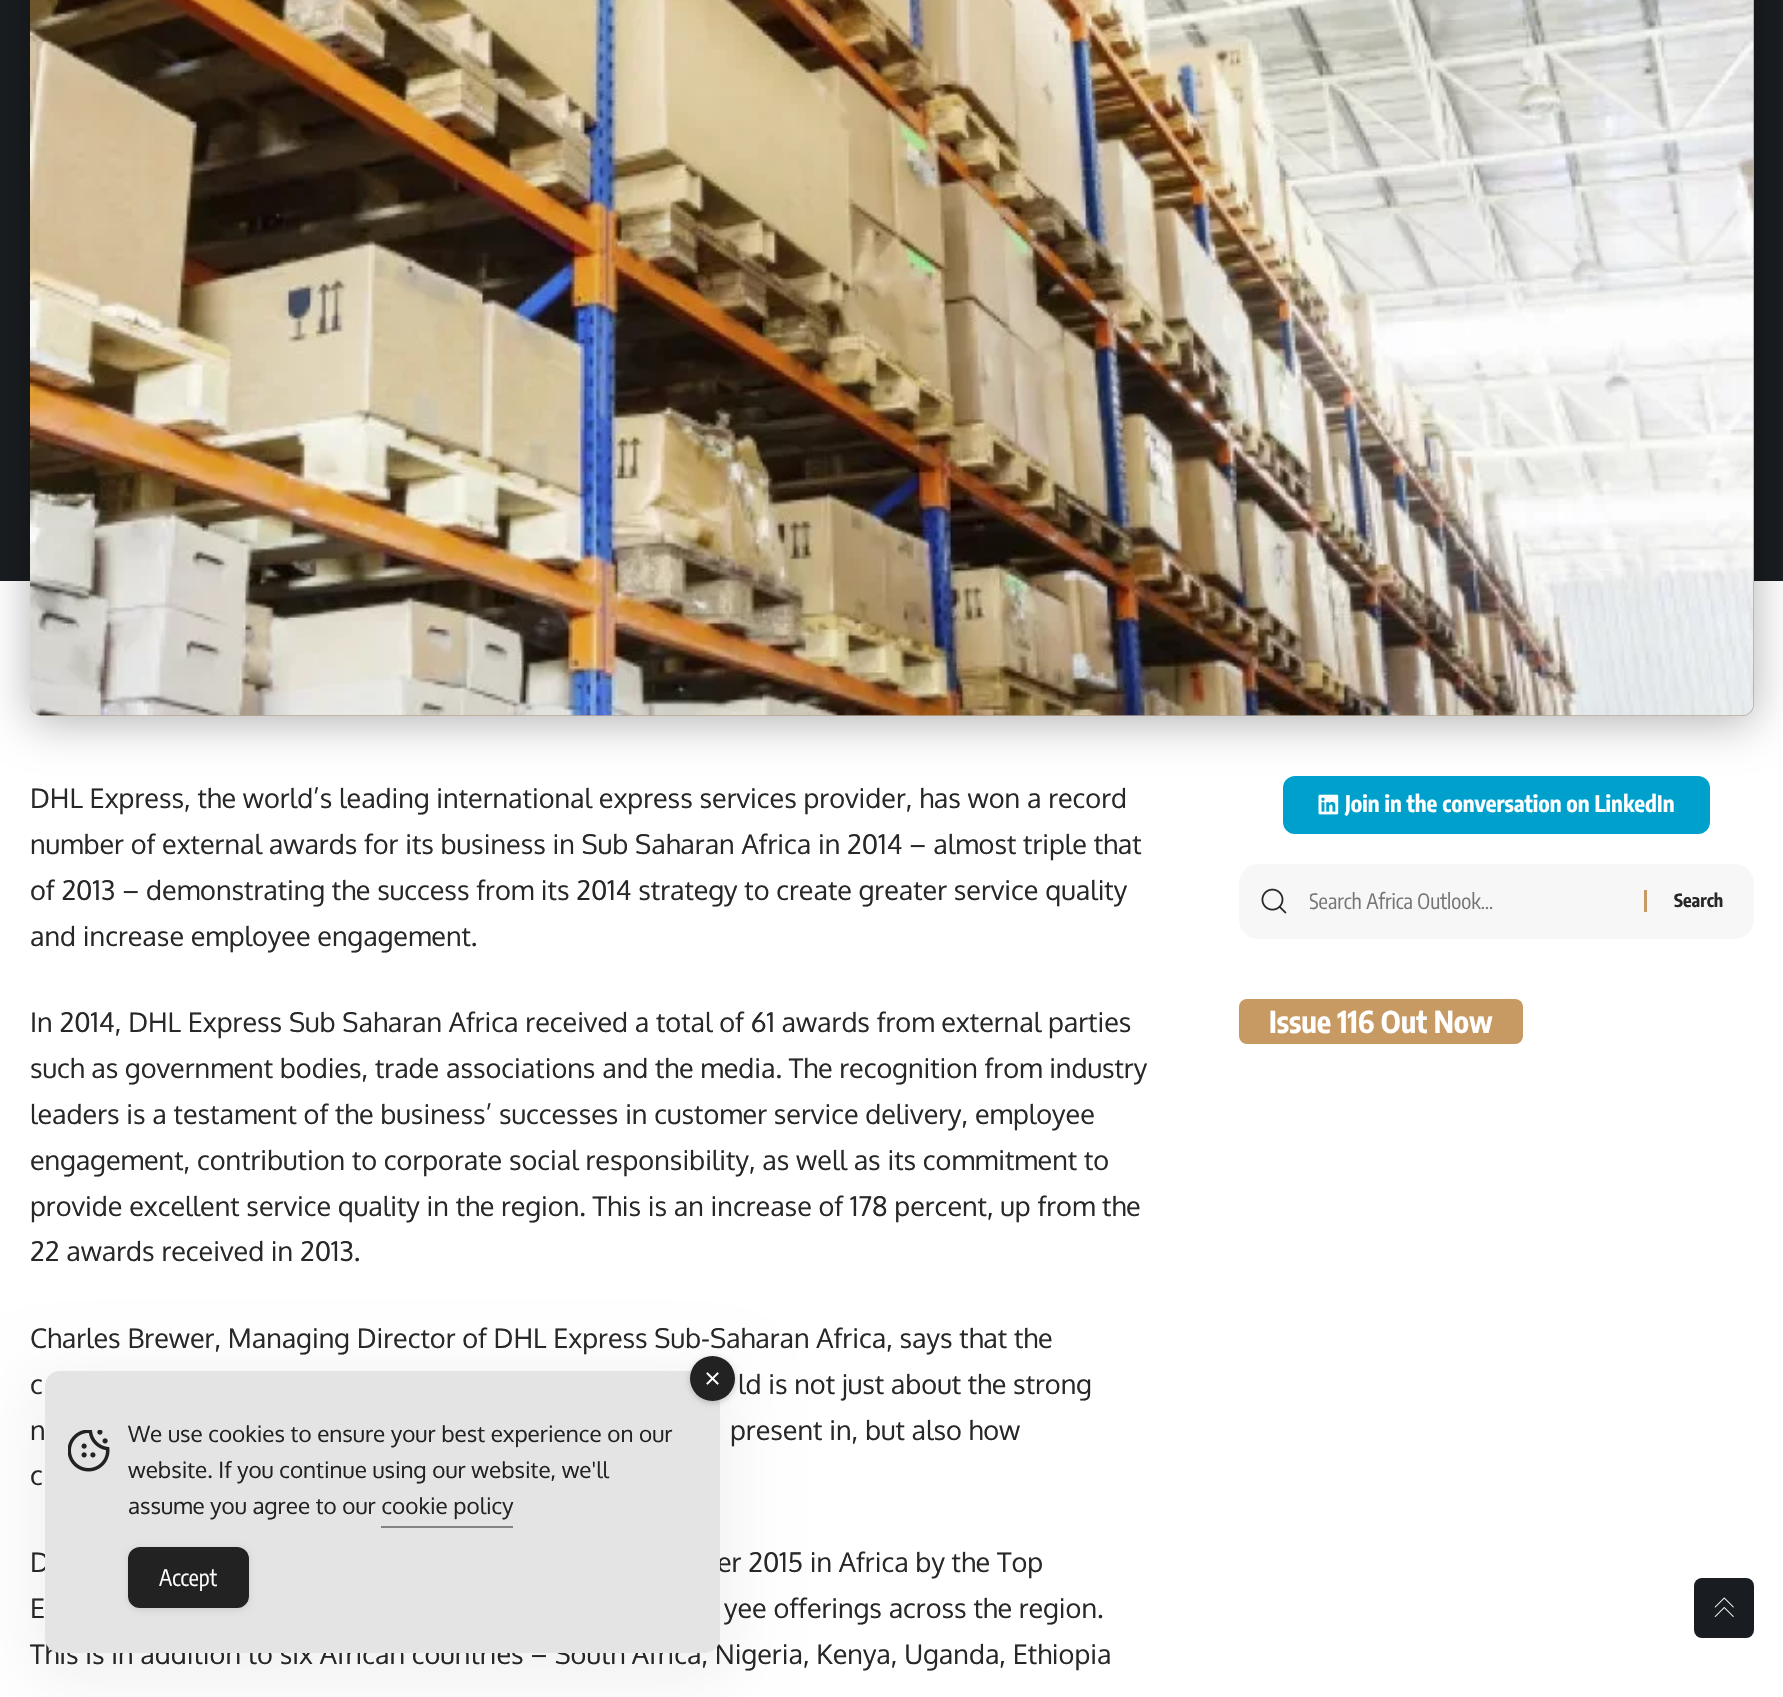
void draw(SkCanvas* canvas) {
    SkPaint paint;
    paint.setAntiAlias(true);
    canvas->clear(0xFFFFFFFF);
    paint.setColor(0xFF191C20);
    canvas->drawRect(SkRect::MakeXYWH(0, 0, 1783, 581), paint);
    paint.setColor(0xFF00A0CD);
    canvas->drawRoundRect(SkRect::MakeXYWH(1283, 776, 427, 58), 12, 12, paint);
    paint.setColor(0x4D000000);
    paint.setMaskFilter(SkMaskFilter::MakeBlur(kNormal_SkBlurStyle, 22.5f));
    canvas->drawRoundRect(SkRect::MakeXYWH(30, -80, 1724, 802), 12, 12, paint);
    paint.setMaskFilter(nullptr);
    paint.setColor(0xFFB5A690);
    canvas->drawRoundRect(SkRect::MakeXYWH(30, -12, 1724, 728), 12, 12, paint);
    canvas->drawImageRect(SkImages::DeferredFromEncodedData(SkData::MakeFromFileName("img1.png")), SkRect::MakeXYWH(30, 0, 1724, 716), SkSamplingOptions());
    SkFont font1(fontMgr->matchFamilyStyle("Oxygen", SkFontStyle::Normal()), 27);
    font1.setSubpixel(true);
    paint.setColor(0xFF282828);
    canvas->drawString("DHL Express, the world’s leading international express services provider, has won a record", 30, 808, font1, paint);
    canvas->drawString("number of external awards for its business in Sub Saharan Africa in 2014 – almost triple that", 30, 854, font1, paint);
    canvas->drawString("of 2013 – demonstrating the success from its 2014 strategy to create greater service quality", 30, 900, font1, paint);
    canvas->drawString("and increase employee engagement.", 30, 946, font1, paint);
    canvas->drawString("In 2014, DHL Express Sub Saharan Africa received a total of 61 awards from external parties", 30, 1032, font1, paint);
    canvas->drawString("such as government bodies, trade associations and the media. The recognition from industry", 30, 1078, font1, paint);
    canvas->drawString("leaders is a testament of the business’ successes in customer service delivery, employee", 30, 1124, font1, paint);
    canvas->drawString("engagement, contribution to corporate social responsibility, as well as its commitment to", 30, 1170, font1, paint);
    canvas->drawString("provide excellent service quality in the region. This is an increase of 178 percent, up from the", 30, 1216, font1, paint);
    canvas->drawString("22 awards received in 2013.", 30, 1261, font1, paint);
    canvas->drawString("Charles Brewer, Managing Director of DHL Express Sub-Saharan Africa, says that the", 30, 1348, font1, paint);
    canvas->drawString("c", 30, 1394, font1, paint);
    canvas->drawString("ld is not just about the strong", 738, 1394, font1, paint);
    canvas->drawString("n", 30, 1440, font1, paint);
    canvas->drawString("present in, but also how", 730, 1440, font1, paint);
    canvas->drawString("c", 30, 1485, font1, paint);
    canvas->drawString("D", 30, 1572, font1, paint);
    canvas->drawString("er 2015 in Africa by the Top", 717, 1572, font1, paint);
    canvas->drawString("E", 30, 1618, font1, paint);
    canvas->drawString("yee offerings across the region.", 724, 1618, font1, paint);
    canvas->drawString("This is in addition to six African countries – South Africa, Nigeria, Kenya, Uganda, Ethiopia", 30, 1664, font1, paint);
    canvas->drawImageRect(SkImages::DeferredFromEncodedData(SkData::MakeFromFileName("img2.png")), SkRect::MakeXYWH(1318, 794, 21, 21), SkSamplingOptions());
    SkFont font2(fontMgr->matchFamilyStyle("Encode Sans Condensed", SkFontStyle::Bold()), 22.5f);
    font2.setSubpixel(true);
    paint.setColor(0xFFFFFFFF);
    canvas->drawString("Join in the conversation on LinkedIn", 1345, 812, font2, paint);
    paint.setColor(0xFFF7F7F7);
    canvas->drawRoundRect(SkRect::MakeXYWH(1239, 864, 515, 75), 20, 20, paint);
    canvas->drawImageRect(SkImages::DeferredFromEncodedData(SkData::MakeFromFileName("img3.png")), SkRect::MakeXYWH(1261, 888, 26, 26), SkSamplingOptions());
    canvas->save();
    canvas->clipRect(SkRect::MakeXYWH(1310, 888, 306, 26));
    SkFont font3(fontMgr->matchFamilyStyle("Encode Sans Condensed", SkFontStyle::Normal()), 21);
    font3.setSubpixel(true);
    paint.setColor(0xFF757575);
    canvas->drawString("Search Africa Outlook…", 1309, 909, font3, paint);
    canvas->restore();
    paint.setColor(0xFFC89A63);
    canvas->drawRect(SkRect::MakeXYWH(1644, 890, 3, 22), paint);
    SkFont font4(fontMgr->matchFamilyStyle("Encode Sans Condensed", SkFontStyle::Bold()), 18);
    font4.setSubpixel(true);
    paint.setColor(0xFF282828);
    canvas->drawString("Search", 1674, 907, font4, paint);
    paint.setColor(0xFFC89A63);
    canvas->drawRoundRect(SkRect::MakeXYWH(1239, 999, 284, 45), 8, 8, paint);
    SkFont font5(fontMgr->matchFamilyStyle("Encode Sans Condensed", SkFontStyle::Bold()), 30);
    font5.setSubpixel(true);
    paint.setColor(0xFFFFFFFF);
    canvas->drawString("Issue 116 Out Now", 1269, 1033, font5, paint);
    paint.setColor(0x0D000000);
    paint.setMaskFilter(SkMaskFilter::MakeBlur(kNormal_SkBlurStyle, 30));
    canvas->drawRoundRect(SkRect::MakeXYWH(30, 1371, 705, 312), 30, 30, paint);
    paint.setMaskFilter(nullptr);
    paint.setColor(0xFFE4E4E4);
    canvas->drawRoundRect(SkRect::MakeXYWH(45, 1371, 675, 282), 15, 15, paint);
    paint.setColor(0x33000000);
    paint.setMaskFilter(SkMaskFilter::MakeBlur(kNormal_SkBlurStyle, 3));
    canvas->drawRoundRect(SkRect::MakeXYWH(690, 1358, 45, 45), 22.5f, 22.5f, paint);
    paint.setMaskFilter(nullptr);
    paint.setColor(0xFF222222);
    canvas->drawCircle(712.5f, 1378.5f, 22.5f, paint);
    canvas->drawImageRect(SkImages::DeferredFromEncodedData(SkData::MakeFromFileName("img4.png")), SkRect::MakeXYWH(706, 1372, 13, 13), SkSamplingOptions());
    canvas->drawImageRect(SkImages::DeferredFromEncodedData(SkData::MakeFromFileName("img5.png")), SkRect::MakeXYWH(68, 1430, 42, 42), SkSamplingOptions());
    SkFont font6(fontMgr->matchFamilyStyle("Oxygen", SkFontStyle::Normal()), 22.5f);
    font6.setSubpixel(true);
    canvas->drawString("We use cookies to ensure your best experience on our", 128, 1442, font6, paint);
    canvas->drawString("website. If you continue using our website, we'll", 128, 1478, font6, paint);
    canvas->drawString("assume you agree to our cookie policy", 128, 1514, font6, paint);
    paint.setColor(0xFF838383);
    canvas->drawRect(SkRect::MakeXYWH(381, 1526, 132, 2), paint);
    paint.setColor(0x1A000000);
    paint.setMaskFilter(SkMaskFilter::MakeBlur(kNormal_SkBlurStyle, 3));
    canvas->drawRoundRect(SkRect::MakeXYWH(128, 1548, 121, 62), 12, 12, paint);
    paint.setMaskFilter(nullptr);
    paint.setColor(0xFF222222);
    canvas->drawRoundRect(SkRect::MakeXYWH(129, 1548, 119, 59), 11, 11, paint);
    paint.setStyle(SkPaint::kStroke_Style);
    paint.setStrokeWidth(2);
    canvas->drawRoundRect(SkRect::MakeXYWH(129, 1548, 119, 59), 11, 11, paint);
    SkFont font7(fontMgr->matchFamilyStyle("Encode Sans Condensed", SkFontStyle::Normal()), 22.5f);
    font7.setSubpixel(true);
    paint.setStyle(SkPaint::kFill_Style);
    paint.setColor(0xFFFFFFFF);
    canvas->drawString("Accept", 159, 1586, font7, paint);
    paint.setColor(0xFF191C20);
    canvas->drawRoundRect(SkRect::MakeXYWH(1694, 1578, 60, 60), 8, 8, paint);
    canvas->drawImageRect(SkImages::DeferredFromEncodedData(SkData::MakeFromFileName("img6.png")), SkRect::MakeXYWH(1714, 1597, 20, 20), SkSamplingOptions());
}
